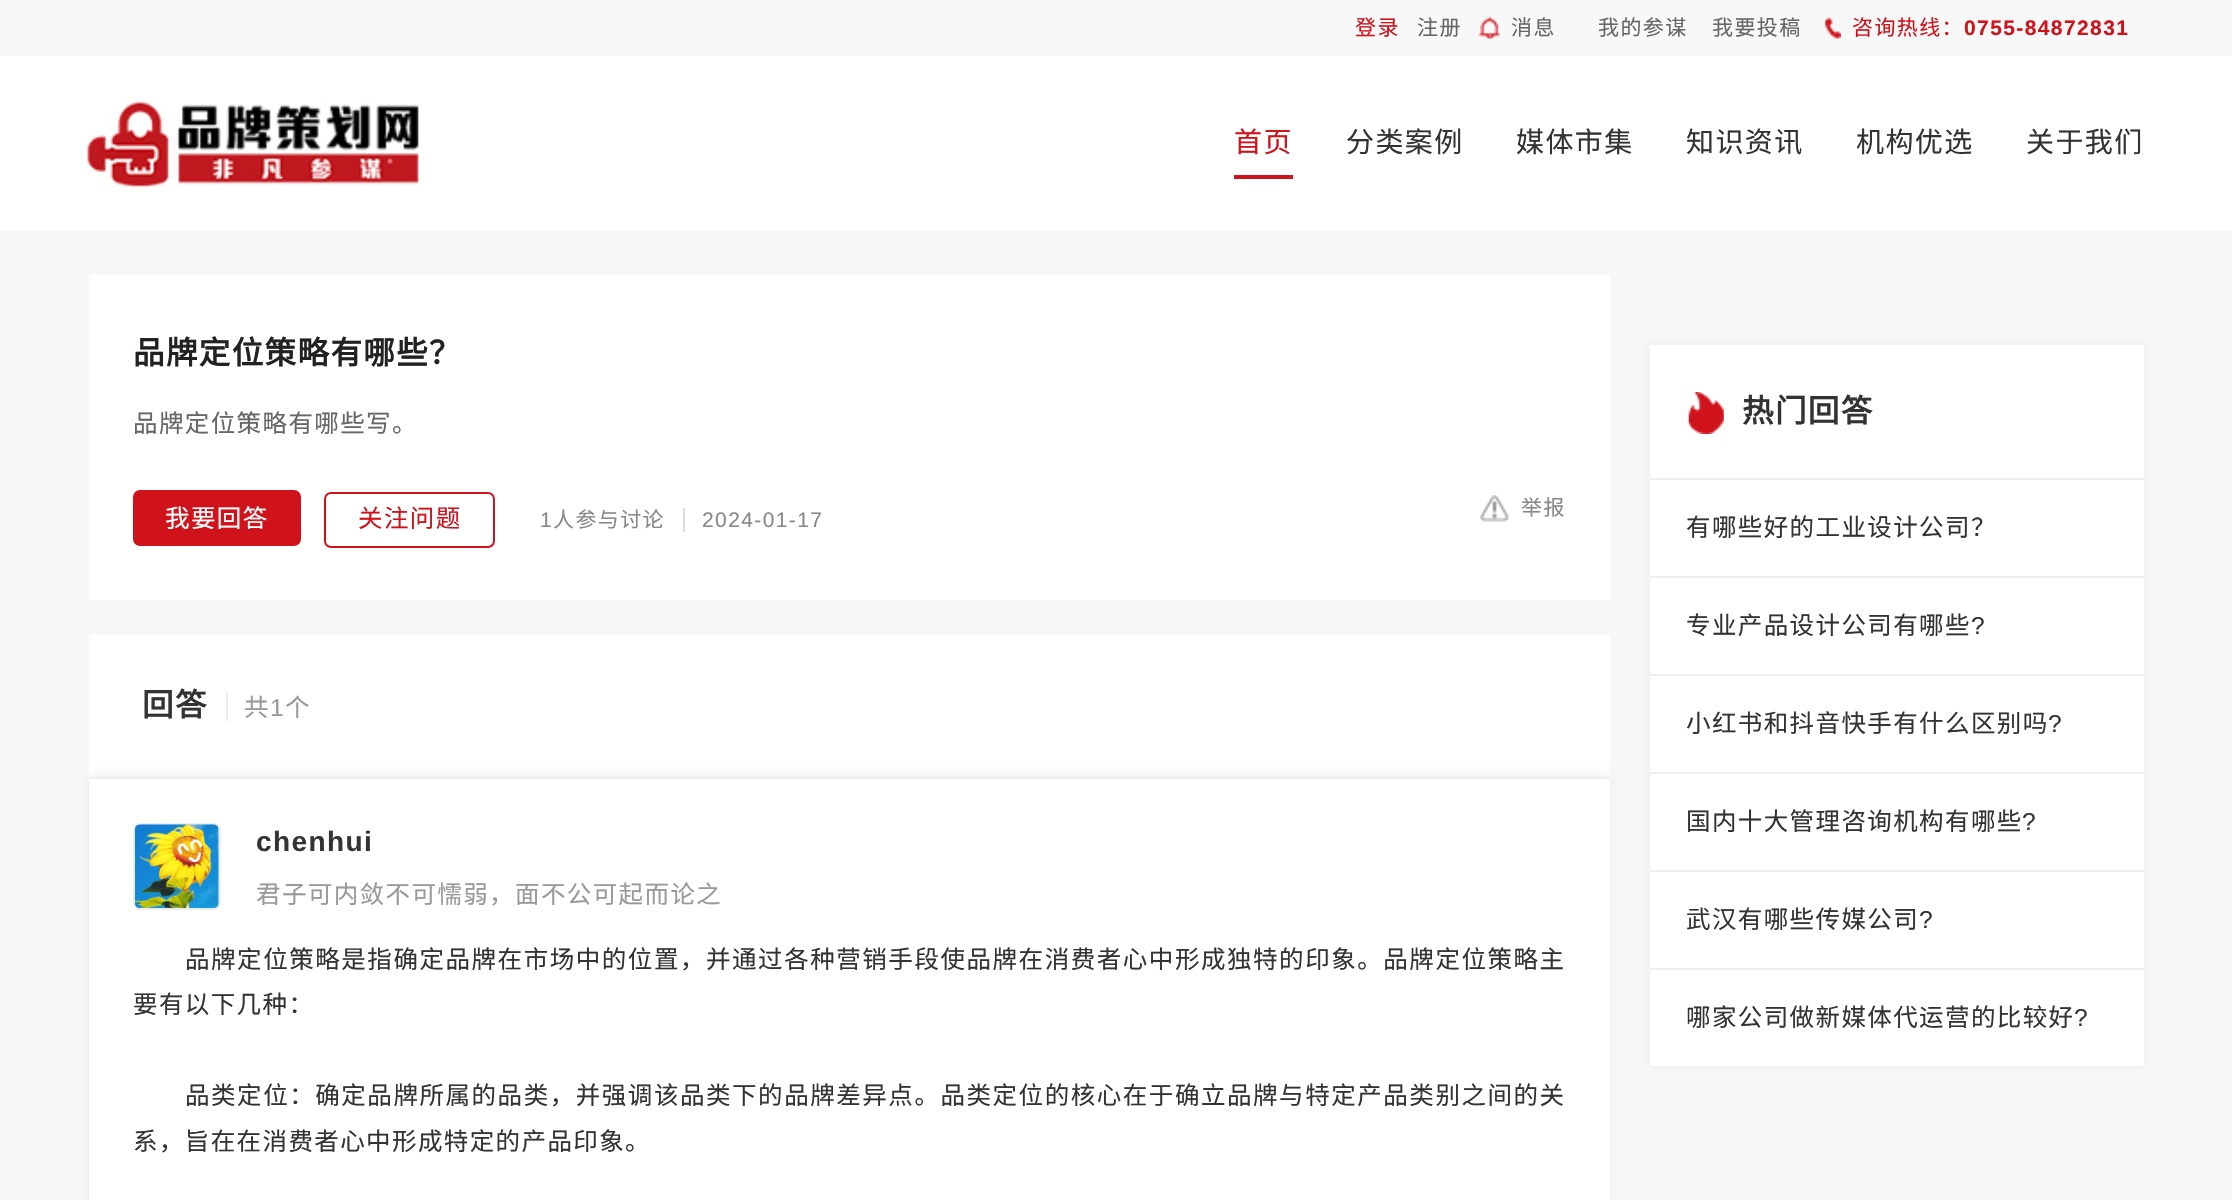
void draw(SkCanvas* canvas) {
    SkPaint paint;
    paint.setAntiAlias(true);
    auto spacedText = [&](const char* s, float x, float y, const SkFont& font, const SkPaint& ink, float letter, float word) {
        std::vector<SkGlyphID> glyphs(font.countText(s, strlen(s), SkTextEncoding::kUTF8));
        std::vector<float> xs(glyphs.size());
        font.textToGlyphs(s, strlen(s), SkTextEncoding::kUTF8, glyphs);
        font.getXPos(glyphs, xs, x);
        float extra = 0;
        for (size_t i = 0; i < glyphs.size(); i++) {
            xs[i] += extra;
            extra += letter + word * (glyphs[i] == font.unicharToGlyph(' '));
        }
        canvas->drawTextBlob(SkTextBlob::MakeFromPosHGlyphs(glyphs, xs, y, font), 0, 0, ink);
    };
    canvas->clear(0xFFFFFFFF);
    paint.setColor(0xFFF8F8F8);
    canvas->drawRect(SkRect::MakeXYWH(0, 0, 2232, 56), paint);
    SkFont font1(fontMgr->matchFamilyStyle("Noto Sans CJK SC", SkFontStyle::Normal()), 21);
    font1.setSubpixel(true);
    paint.setColor(0xFFD0121B);
    spacedText("登录", 1355, 35, font1, paint, 1.4f, 0);
    paint.setColor(0xFF666666);
    spacedText("注册", 1417, 35, font1, paint, 1.4f, 0);
    canvas->drawImageRect(SkImages::DeferredFromEncodedData(SkData::MakeFromFileName("img1.png")), SkRect::MakeXYWH(1478, 17, 22, 22), SkSamplingOptions());
    spacedText("消息", 1511, 35, font1, paint, 1.4f, 0);
    spacedText("我的参谋", 1598, 35, font1, paint, 1.4f, 0);
    spacedText("我要投稿", 1712, 35, font1, paint, 1.4f, 0);
    canvas->drawImageRect(SkImages::DeferredFromEncodedData(SkData::MakeFromFileName("img2.png")), SkRect::MakeXYWH(1825, 17, 16, 22), SkSamplingOptions());
    paint.setColor(0xFFD0121B);
    spacedText("咨询热线：", 1852, 35, font1, paint, 1.4f, 0);
    SkFont font2(fontMgr->matchFamilyStyle("Liberation Sans", SkFontStyle::Bold()), 21);
    font2.setSubpixel(true);
    spacedText("0755-84872831", 1964, 35, font2, paint, 1.4f, 0);
    canvas->drawImageRect(SkImages::DeferredFromEncodedData(SkData::MakeFromFileName("img3.png")), SkRect::MakeXYWH(86, 101, 333, 87), SkSamplingOptions());
    SkFont font3(fontMgr->matchFamilyStyle("Noto Sans CJK SC", SkFontStyle::Normal()), 28);
    font3.setSubpixel(true);
    spacedText("首页", 1234, 152, font3, paint, 1.4f, 0);
    canvas->drawRect(SkRect::MakeXYWH(1234, 175, 59, 4), paint);
    paint.setColor(0xFF333333);
    spacedText("分类案例", 1346, 152, font3, paint, 1.4f, 0);
    spacedText("媒体市集", 1516, 152, font3, paint, 1.4f, 0);
    spacedText("知识资讯", 1686, 152, font3, paint, 1.4f, 0);
    spacedText("机构优选", 1856, 152, font3, paint, 1.4f, 0);
    spacedText("关于我们", 2026, 152, font3, paint, 1.4f, 0);
    paint.setColor(0xFFF8F8F8);
    canvas->drawRect(SkRect::MakeXYWH(0, 231, 2232, 969), paint);
    paint.setColor(0xFFFFFFFF);
    canvas->drawRect(SkRect::MakeXYWH(89, 275, 1521, 325), paint);
    SkFont font4(fontMgr->matchFamilyStyle("Noto Sans CJK SC", SkFontStyle::Bold()), 31.5f);
    font4.setSubpixel(true);
    paint.setColor(0xFF222222);
    spacedText("品牌定位策略有哪些？", 133, 364, font4, paint, 1.4f, 0);
    SkFont font5(fontMgr->matchFamilyStyle("Noto Sans CJK SC", SkFontStyle::Normal()), 24.5f);
    font5.setSubpixel(true);
    paint.setColor(0xFF666666);
    spacedText("品牌定位策略有哪些写。", 133, 432, font5, paint, 1.4f, 0);
    paint.setColor(0xFFD0121B);
    canvas->drawRoundRect(SkRect::MakeXYWH(133, 490, 168, 56), 7, 7, paint);
    paint.setColor(0xFFFFFFFF);
    spacedText("我要回答", 165, 527, font5, paint, 1.4f, 0);
    paint.setStyle(SkPaint::kStroke_Style);
    paint.setStrokeWidth(2);
    paint.setColor(0xFFD0121B);
    canvas->drawRoundRect(SkRect::MakeXYWH(325, 493, 169, 54), 6, 6, paint);
    paint.setStyle(SkPaint::kFill_Style);
    spacedText("关注问题", 358, 527, font5, paint, 1.4f, 0);
    SkFont font6(fontMgr->matchFamilyStyle("Liberation Sans", SkFontStyle::Normal()), 21);
    font6.setSubpixel(true);
    paint.setColor(0xFF888888);
    spacedText("1", 540, 527, font6, paint, 1.4f, 0);
    spacedText("人参与讨论", 553, 527, font1, paint, 1.4f, 0);
    spacedText("2024-01-17", 702, 527, font6, paint, 1.4f, 0);
    paint.setColor(0xFFDDDDDD);
    canvas->drawRect(SkRect::MakeXYWH(683, 508, 2, 24), paint);
    canvas->drawImageRect(SkImages::DeferredFromEncodedData(SkData::MakeFromFileName("img4.png")), SkRect::MakeXYWH(1480, 495, 29, 27), SkSamplingOptions());
    paint.setColor(0xFF888888);
    spacedText("举报", 1521, 515, font1, paint, 1.4f, 0);
    paint.setColor(0xFFFFFFFF);
    canvas->drawRect(SkRect::MakeXYWH(89, 635, 1521, 565), paint);
    paint.setColor(0xFF333333);
    spacedText("回答", 142, 716, font4, paint, 1.4f, 0);
    paint.setColor(0xFF999999);
    spacedText("共", 244, 716, font5, paint, 1.4f, 0);
    paint.setColor(0xFFEEEEEE);
    canvas->drawRect(SkRect::MakeXYWH(226, 693, 2, 28), paint);
    SkFont font7(fontMgr->matchFamilyStyle("Liberation Sans", SkFontStyle::Normal()), 24.5f);
    font7.setSubpixel(true);
    paint.setColor(0xFF999999);
    spacedText("1", 270, 716, font7, paint, 1.4f, 0);
    spacedText("个", 285, 716, font5, paint, 1.4f, 0);
    canvas->save();
    canvas->clipPath(SkPathBuilder(SkPathFillType::kEvenOdd).moveTo(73, 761).lineTo(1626, 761).lineTo(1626, 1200).lineTo(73, 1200).close().moveTo(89, 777).lineTo(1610, 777).lineTo(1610, 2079).lineTo(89, 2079).close().detach(), true);
    paint.setColor(0xFFE9E9E9);
    paint.setMaskFilter(SkMaskFilter::MakeBlur(kNormal_SkBlurStyle, 5));
    canvas->drawRect(SkRect::MakeXYWH(89, 777, 1521, 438), paint);
    paint.setMaskFilter(nullptr);
    canvas->restore();
    paint.setColor(0xFFEEEEEE);
    canvas->drawRect(SkRect::MakeXYWH(89, 777, 1521, 2), paint);
    paint.setStyle(SkPaint::kStroke_Style);
    canvas->drawRoundRect(SkRect::MakeXYWH(134, 824, 86, 85), 6, 6, paint);
    canvas->drawImageRect(SkImages::DeferredFromEncodedData(SkData::MakeFromFileName("img5.png")), SkRect::MakeXYWH(134, 824, 85, 85), SkSamplingOptions());
    SkFont font8(fontMgr->matchFamilyStyle("Liberation Sans", SkFontStyle::Bold()), 28);
    font8.setSubpixel(true);
    paint.setStyle(SkPaint::kFill_Style);
    paint.setColor(0xFF333333);
    spacedText("chenhui", 256, 851, font8, paint, 1.4f, 0);
    paint.setColor(0xFF999999);
    spacedText("君子可内敛不可懦弱，面不公可起而论之", 256, 903, font5, paint, 1.4f, 0);
    paint.setColor(0xFF333333);
    spacedText("品牌定位策略是指确定品牌在市场中的位置，并通过各种营销手段使品牌在消费者心中形成独特的印象。品牌定位策略主", 185, 968, font5, paint, 1.55f, 0);
    spacedText("要有以下几种：", 133, 1013, font5, paint, 1.4f, 0);
    spacedText("品类定位：确定品牌所属的品类，并强调该品类下的品牌差异点。品类定位的核心在于确立品牌与特定产品类别之间的关", 185, 1104, font5, paint, 1.55f, 0);
    spacedText("系，旨在在消费者心中形成特定的产品印象。", 133, 1150, font5, paint, 1.4f, 0);
    paint.setColor(0xFFE9E9E9);
    paint.setMaskFilter(SkMaskFilter::MakeBlur(kNormal_SkBlurStyle, 5));
    canvas->drawRect(SkRect::MakeXYWH(1650, 345, 494, 721), paint);
    paint.setMaskFilter(nullptr);
    paint.setColor(0xFFFFFFFF);
    canvas->drawRect(SkRect::MakeXYWH(1650, 345, 494, 721), paint);
    canvas->drawImageRect(SkImages::DeferredFromEncodedData(SkData::MakeFromFileName("img6.png")), SkRect::MakeXYWH(1688, 392, 36, 42), SkSamplingOptions());
    paint.setColor(0xFF333333);
    spacedText("热门回答", 1742, 422, font4, paint, 1.4f, 0);
    paint.setColor(0xFFEEEEEE);
    canvas->drawRect(SkRect::MakeXYWH(1650, 478, 494, 2), paint);
    paint.setColor(0xFF333333);
    spacedText("有哪些好的工业设计公司？", 1686, 536, font5, paint, 1.4f, 0);
    paint.setColor(0xFFEEEEEE);
    canvas->drawRect(SkRect::MakeXYWH(1650, 576, 494, 2), paint);
    paint.setColor(0xFF333333);
    spacedText("专业产品设计公司有哪些", 1686, 634, font5, paint, 1.4f, 0);
    spacedText("?", 1971, 634, font7, paint, 1.4f, 0);
    paint.setColor(0xFFEEEEEE);
    canvas->drawRect(SkRect::MakeXYWH(1650, 674, 494, 2), paint);
    paint.setColor(0xFF333333);
    spacedText("小红书和抖音快手有什么区别吗", 1686, 732, font5, paint, 1.4f, 0);
    spacedText("?", 2048, 732, font7, paint, 1.4f, 0);
    paint.setColor(0xFFEEEEEE);
    canvas->drawRect(SkRect::MakeXYWH(1650, 772, 494, 2), paint);
    paint.setColor(0xFF333333);
    spacedText("国内十大管理咨询机构有哪些", 1686, 830, font5, paint, 1.4f, 0);
    spacedText("?", 2022, 830, font7, paint, 1.4f, 0);
    paint.setColor(0xFFEEEEEE);
    canvas->drawRect(SkRect::MakeXYWH(1650, 870, 494, 2), paint);
    paint.setColor(0xFF333333);
    spacedText("武汉有哪些传媒公司", 1686, 928, font5, paint, 1.4f, 0);
    spacedText("?", 1919, 928, font7, paint, 1.4f, 0);
    paint.setColor(0xFFEEEEEE);
    canvas->drawRect(SkRect::MakeXYWH(1650, 968, 494, 2), paint);
    paint.setColor(0xFF333333);
    spacedText("哪家公司做新媒体代运营的比较好", 1686, 1026, font5, paint, 1.4f, 0);
    spacedText("?", 2074, 1026, font7, paint, 1.4f, 0);
}
